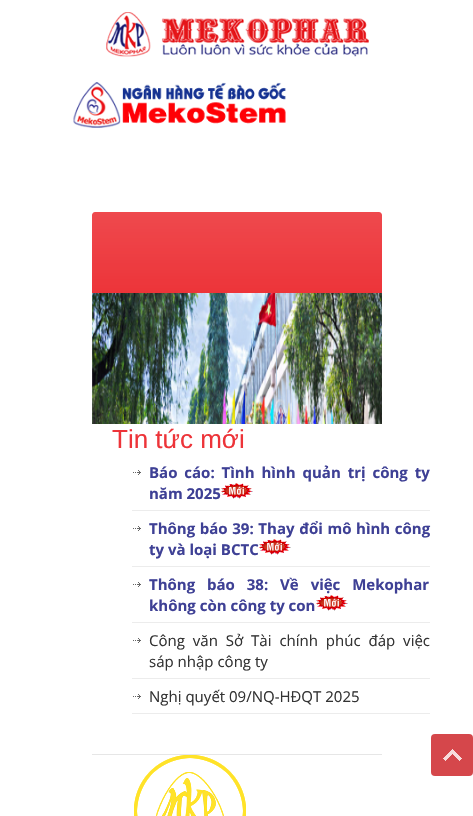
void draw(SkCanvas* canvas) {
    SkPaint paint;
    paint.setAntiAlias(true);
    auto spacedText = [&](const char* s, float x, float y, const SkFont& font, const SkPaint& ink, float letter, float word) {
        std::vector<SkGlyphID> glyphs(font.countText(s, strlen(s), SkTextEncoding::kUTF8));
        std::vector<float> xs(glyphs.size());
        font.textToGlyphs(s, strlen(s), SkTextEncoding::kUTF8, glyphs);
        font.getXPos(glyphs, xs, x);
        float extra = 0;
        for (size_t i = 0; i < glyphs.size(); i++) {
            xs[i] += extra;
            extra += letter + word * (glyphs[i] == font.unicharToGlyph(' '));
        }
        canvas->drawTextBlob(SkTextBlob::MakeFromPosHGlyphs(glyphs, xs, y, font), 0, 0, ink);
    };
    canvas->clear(0xFFFFFFFF);
    canvas->drawImageRect(SkImages::DeferredFromEncodedData(SkData::MakeFromFileName("img1.png")), SkRect::MakeXYWH(106, 12, 263, 45), SkSamplingOptions());
    canvas->drawImageRect(SkImages::DeferredFromEncodedData(SkData::MakeFromFileName("img2.png")), SkRect::MakeXYWH(73, 82, 213, 46), SkSamplingOptions());
    paint.setColor(0xFFED3439);
    canvas->drawPath(SkPathBuilder().moveTo(95, 212).lineTo(379, 212).cubicTo(380.5f, 212, 382, 213.5f, 382, 215).lineTo(382, 293).lineTo(92, 293).lineTo(92, 215).cubicTo(92, 213.5f, 93.5f, 212, 95, 212).close().detach(), paint);
    {
        const SkColor colors[] = {0x1AFFFFFF, 0x00FFFFFF};
        const float stops[] = {0, 1};
        const SkPoint ends[] = {{237, 212}, {237, 293}};
        paint.setShader(SkGradientShader::MakeLinear(ends, colors, stops, 2, SkTileMode::kClamp));
        paint.setAlpha(255);
    }
    canvas->drawPath(SkPathBuilder().moveTo(95, 212).lineTo(379, 212).cubicTo(380.5f, 212, 382, 213.5f, 382, 215).lineTo(382, 293).lineTo(92, 293).lineTo(92, 215).cubicTo(92, 213.5f, 93.5f, 212, 95, 212).close().detach(), paint);
    paint.setShader(nullptr);
    paint.setColor(0xFFE6E6E6);
    canvas->drawRect(SkRect::MakeXYWH(92, 754, 290, 1), paint);
    canvas->drawImageRect(SkImages::DeferredFromEncodedData(SkData::MakeFromFileName("img3.png")), SkRect::MakeXYWH(92, 293, 290, 131), SkSamplingOptions());
    SkFont font1(fontMgr->matchFamilyStyle("Liberation Sans", SkFontStyle::Normal()), 26);
    font1.setSubpixel(true);
    paint.setColor(0xFFED3439);
    canvas->drawString("Tin tức mới", 112, 448, font1, paint);
    canvas->drawImageRect(SkImages::DeferredFromEncodedData(SkData::MakeFromFileName("img4.png")), SkRect::MakeXYWH(133, 470, 8, 5), SkSamplingOptions());
    paint.setColor(0xFFECECEC);
    canvas->drawRect(SkRect::MakeXYWH(132, 510, 298, 1), paint);
    SkFont font2(fontMgr->matchFamilyStyle("Open Sans", SkFontStyle::Bold()), 15);
    font2.setSubpixel(true);
    paint.setColor(0xFF3E4095);
    spacedText("Báo cáo: Tình hình quản trị công ty", 149, 478, font2, paint, 0, 3);
    canvas->drawString("năm 2025", 149, 499, font2, paint);
    canvas->drawImageRect(SkImages::DeferredFromEncodedData(SkData::MakeFromFileName("img5.png")), SkRect::MakeXYWH(221, 483, 32, 16), SkSamplingOptions());
    canvas->drawImageRect(SkImages::DeferredFromEncodedData(SkData::MakeFromFileName("img4.png")), SkRect::MakeXYWH(133, 526, 8, 5), SkSamplingOptions());
    paint.setColor(0xFFECECEC);
    canvas->drawRect(SkRect::MakeXYWH(132, 566, 298, 1), paint);
    paint.setColor(0xFF3E4095);
    spacedText("Thông báo 39: Thay đổi mô hình công", 149, 534, font2, paint, 0, 0.75f);
    canvas->drawString("ty và loại BCTC", 149, 555, font2, paint);
    canvas->drawImageRect(SkImages::DeferredFromEncodedData(SkData::MakeFromFileName("img5.png")), SkRect::MakeXYWH(259, 539, 32, 16), SkSamplingOptions());
    canvas->drawImageRect(SkImages::DeferredFromEncodedData(SkData::MakeFromFileName("img4.png")), SkRect::MakeXYWH(133, 582, 8, 5), SkSamplingOptions());
    paint.setColor(0xFFECECEC);
    canvas->drawRect(SkRect::MakeXYWH(132, 622, 298, 1), paint);
    paint.setColor(0xFF3E4095);
    spacedText("Thông báo 38: Về việc Mekophar", 149, 590, font2, paint, 0, 8);
    canvas->drawString("không còn công ty con", 149, 611, font2, paint);
    canvas->drawImageRect(SkImages::DeferredFromEncodedData(SkData::MakeFromFileName("img5.png")), SkRect::MakeXYWH(316, 595, 32, 16), SkSamplingOptions());
    canvas->drawImageRect(SkImages::DeferredFromEncodedData(SkData::MakeFromFileName("img4.png")), SkRect::MakeXYWH(133, 638, 8, 5), SkSamplingOptions());
    paint.setColor(0xFFECECEC);
    canvas->drawRect(SkRect::MakeXYWH(132, 678, 298, 1), paint);
    SkFont font3(fontMgr->matchFamilyStyle("Open Sans", SkFontStyle::Normal()), 15);
    font3.setSubpixel(true);
    paint.setColor(0xFF333333);
    spacedText("Công văn Sở Tài chính phúc đáp việc", 149, 646, font3, paint, 0, 4);
    canvas->drawString("sáp nhập công ty", 149, 667, font3, paint);
    canvas->drawImageRect(SkImages::DeferredFromEncodedData(SkData::MakeFromFileName("img4.png")), SkRect::MakeXYWH(133, 694, 8, 5), SkSamplingOptions());
    paint.setColor(0xFFECECEC);
    canvas->drawRect(SkRect::MakeXYWH(132, 713, 298, 1), paint);
    paint.setColor(0xFF333333);
    canvas->drawString("Nghị quyết 09/NQ-HĐQT 2025", 149, 702, font3, paint);
    canvas->drawImageRect(SkImages::DeferredFromEncodedData(SkData::MakeFromFileName("img6.png")), SkRect::MakeXYWH(134, 755, 112, 61), SkSamplingOptions());
    paint.setColor(0xFFD5474B);
    canvas->drawRoundRect(SkRect::MakeXYWH(431, 734, 42, 42), 4, 4, paint);
    canvas->drawImageRect(SkImages::DeferredFromEncodedData(SkData::MakeFromFileName("img7.png")), SkRect::MakeXYWH(443, 749, 19, 12), SkSamplingOptions());
}
